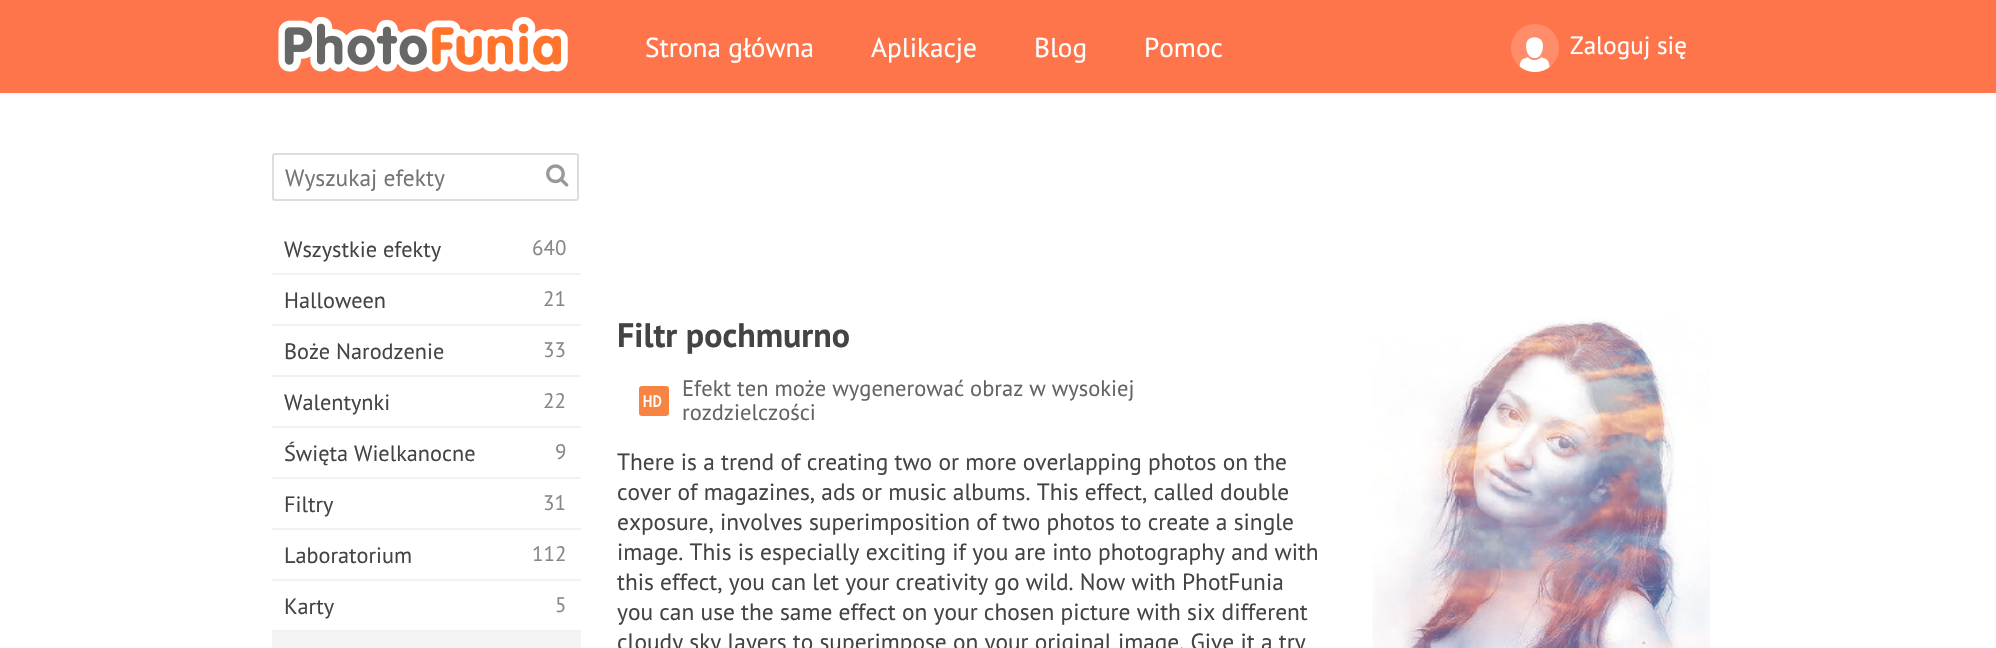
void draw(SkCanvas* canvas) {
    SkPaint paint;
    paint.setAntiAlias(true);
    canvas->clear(0xFFFFFFFF);
    paint.setColor(0x14000000);
    paint.setMaskFilter(SkMaskFilter::MakeBlur(kNormal_SkBlurStyle, 3));
    canvas->drawRect(SkRect::MakeXYWH(0, 0, 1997, 93), paint);
    paint.setMaskFilter(nullptr);
    paint.setColor(0xFFFF754B);
    canvas->drawRect(SkRect::MakeXYWH(0, 0, 1996, 93), paint);
    canvas->drawImageRect(SkImages::DeferredFromEncodedData(SkData::MakeFromFileName("img1.png")), SkRect::MakeXYWH(278, 17, 290, 55), SkSamplingOptions());
    SkFont font1(fontMgr->matchFamilyStyle("PT Sans", SkFontStyle::Normal()), 27.25f);
    font1.setSubpixel(true);
    paint.setColor(0xFFFFFFFF);
    canvas->drawString("Strona główna", 645, 57, font1, paint);
    canvas->drawString("Aplikacje", 871, 57, font1, paint);
    canvas->drawString("Blog", 1034, 57, font1, paint);
    canvas->drawString("Pomoc", 1144, 57, font1, paint);
    paint.setColor(0xFFFF8C6A);
    canvas->drawCircle(1535, 48, 24, paint);
    canvas->drawImageRect(SkImages::DeferredFromEncodedData(SkData::MakeFromFileName("img2.png")), SkRect::MakeXYWH(1519, 37, 31, 35), SkSamplingOptions());
    SkFont font2(fontMgr->matchFamilyStyle("PT Sans", SkFontStyle::Normal()), 25);
    font2.setSubpixel(true);
    paint.setColor(0xFFFFFFFF);
    canvas->drawString("Zaloguj się", 1570, 54, font2, paint);
    paint.setStyle(SkPaint::kStroke_Style);
    paint.setStrokeWidth(2);
    paint.setColor(0xFFDDDDDD);
    canvas->drawRoundRect(SkRect::MakeXYWH(273, 154, 305, 46), 2, 2, paint);
    SkFont font3(fontMgr->matchFamilyStyle("PT Sans", SkFontStyle::Normal()), 23.4f);
    font3.setSubpixel(true);
    paint.setStyle(SkPaint::kFill_Style);
    paint.setColor(0xFF757575);
    canvas->drawString("Wyszukaj efekty", 285, 186, font3, paint);
    canvas->drawImageRect(SkImages::DeferredFromEncodedData(SkData::MakeFromFileName("img3.png")), SkRect::MakeXYWH(546, 164, 23, 23), SkSamplingOptions());
    paint.setColor(0xFFF2F2F2);
    canvas->drawRect(SkRect::MakeXYWH(272, 273, 309, 2), paint);
    SkFont font4(fontMgr->matchFamilyStyle("PT Sans", SkFontStyle::Normal()), 22.25f);
    font4.setSubpixel(true);
    paint.setColor(0xFF444444);
    canvas->drawString("Wszystkie efekty", 284, 257, font4, paint);
    SkFont font5(fontMgr->matchFamilyStyle("PT Sans", SkFontStyle::Normal()), 21);
    font5.setSubpixel(true);
    paint.setColor(0xFF888888);
    canvas->drawString("640", 532, 255, font5, paint);
    paint.setColor(0xFFF2F2F2);
    canvas->drawRect(SkRect::MakeXYWH(272, 324, 309, 2), paint);
    paint.setColor(0xFF444444);
    canvas->drawString("Halloween", 284, 308, font4, paint);
    paint.setColor(0xFF888888);
    canvas->drawString("21", 543, 306, font5, paint);
    paint.setColor(0xFFF2F2F2);
    canvas->drawRect(SkRect::MakeXYWH(272, 375, 309, 2), paint);
    paint.setColor(0xFF444444);
    canvas->drawString("Boże Narodzenie", 284, 359, font4, paint);
    paint.setColor(0xFF888888);
    canvas->drawString("33", 543, 357, font5, paint);
    paint.setColor(0xFFF2F2F2);
    canvas->drawRect(SkRect::MakeXYWH(272, 426, 309, 2), paint);
    paint.setColor(0xFF444444);
    canvas->drawString("Walentynki", 284, 410, font4, paint);
    paint.setColor(0xFF888888);
    canvas->drawString("22", 543, 408, font5, paint);
    paint.setColor(0xFFF2F2F2);
    canvas->drawRect(SkRect::MakeXYWH(272, 477, 309, 2), paint);
    paint.setColor(0xFF444444);
    canvas->drawString("Święta Wielkanocne", 284, 461, font4, paint);
    paint.setColor(0xFF888888);
    canvas->drawString("9", 555, 459, font5, paint);
    paint.setColor(0xFFF2F2F2);
    canvas->drawRect(SkRect::MakeXYWH(272, 528, 309, 2), paint);
    paint.setColor(0xFF444444);
    canvas->drawString("Filtry", 284, 512, font4, paint);
    paint.setColor(0xFF888888);
    canvas->drawString("31", 543, 510, font5, paint);
    paint.setColor(0xFFF2F2F2);
    canvas->drawRect(SkRect::MakeXYWH(272, 579, 309, 2), paint);
    paint.setColor(0xFF444444);
    canvas->drawString("Laboratorium", 284, 563, font4, paint);
    paint.setColor(0xFF888888);
    canvas->drawString("112", 532, 561, font5, paint);
    paint.setColor(0xFFF2F2F2);
    canvas->drawRect(SkRect::MakeXYWH(272, 630, 309, 2), paint);
    paint.setColor(0xFF444444);
    canvas->drawString("Karty", 284, 614, font4, paint);
    paint.setColor(0xFF888888);
    canvas->drawString("5", 555, 612, font5, paint);
    paint.setColor(0xFFF4F4F4);
    canvas->drawRoundRect(SkRect::MakeXYWH(272, 632, 309, 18), 1.5f, 1.5f, paint);
    SkFont font6(fontMgr->matchFamilyStyle("PT Sans", SkFontStyle::Bold()), 34);
    font6.setSubpixel(true);
    paint.setColor(0xFF444444);
    canvas->drawString("Filtr pochmurno", 617, 347, font6, paint);
    paint.setColor(0xFFF78442);
    canvas->drawRoundRect(SkRect::MakeXYWH(639, 386, 30, 30), 3, 3, paint);
    canvas->drawImageRect(SkImages::DeferredFromEncodedData(SkData::MakeFromFileName("img4.png")), SkRect::MakeXYWH(643, 395, 19, 12), SkSamplingOptions());
    SkFont font7(fontMgr->matchFamilyStyle("PT Sans", SkFontStyle::Normal()), 22.5f);
    font7.setSubpixel(true);
    paint.setColor(0xFF656464);
    canvas->drawString("Efekt ten może wygenerować obraz w wysokiej", 682, 396, font7, paint);
    canvas->drawString("rozdzielczości", 682, 420, font7, paint);
    paint.setColor(0xFF444444);
    canvas->drawString("There is a trend of creating two or more overlapping photos on the", 617, 470, font3, paint);
    canvas->drawString("cover of magazines, ads or music albums. This effect, called double", 617, 500, font3, paint);
    canvas->drawString("exposure, involves superimposition of two photos to create a single", 617, 530, font3, paint);
    canvas->drawString("image. This is especially exciting if you are into photography and with", 617, 560, font3, paint);
    canvas->drawString("this effect, you can let your creativity go wild. Now with PhotFunia", 617, 590, font3, paint);
    canvas->drawString("you can use the same effect on your chosen picture with six different", 617, 620, font3, paint);
    canvas->drawString("cloudy sky layers to superimpose on your original image. Give it a try", 617, 650, font3, paint);
    canvas->drawImageRect(SkImages::DeferredFromEncodedData(SkData::MakeFromFileName("img5.png")), SkRect::MakeXYWH(1372, 318, 338, 330), SkSamplingOptions());
}
